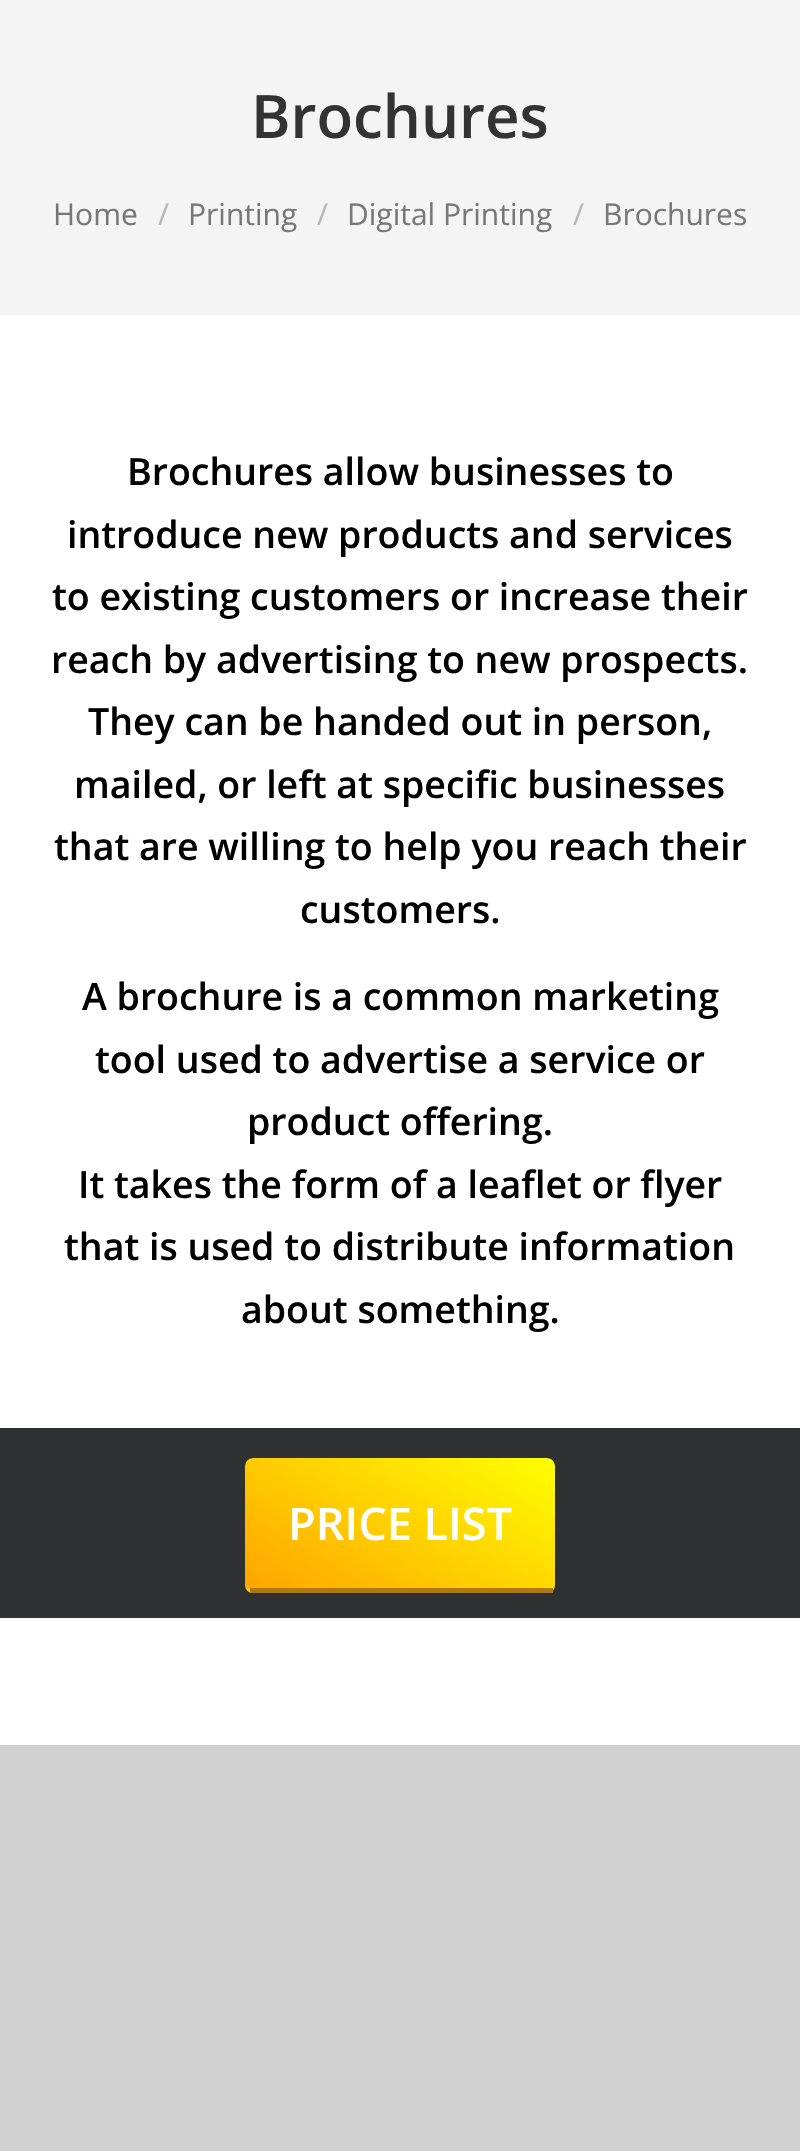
void draw(SkCanvas* canvas) {
    SkPaint paint;
    paint.setAntiAlias(true);
    canvas->clear(0xFFD1D1D1);
    paint.setColor(0xFFFFFFFF);
    canvas->drawRect(SkRect::MakeXYWH(0, 315, 800, 1430), paint);
    paint.setColor(0xFFF4F4F4);
    canvas->drawRect(SkRect::MakeXYWH(0, 0, 800, 315), paint);
    SkFont font1(fontMgr->matchFamilyStyle("Open Sans", SkFontStyle(600, SkFontStyle::kNormal_Width, SkFontStyle::kUpright_Slant)), 60);
    font1.setSubpixel(true);
    paint.setColor(0xFF333333);
    canvas->drawString("Brochures", 251, 138, font1, paint);
    SkFont font2(fontMgr->matchFamilyStyle("Open Sans", SkFontStyle::Normal()), 30);
    font2.setSubpixel(true);
    paint.setColor(0xFF777777);
    canvas->drawString("Home", 53, 225, font2, paint);
    paint.setColor(0xFFB6B6B6);
    canvas->drawString("/", 158, 225, font2, paint);
    paint.setColor(0xFF777777);
    canvas->drawString("Printing", 188, 225, font2, paint);
    paint.setColor(0xFFB6B6B6);
    canvas->drawString("/", 317, 225, font2, paint);
    paint.setColor(0xFF777777);
    canvas->drawString("Digital Printing", 347, 225, font2, paint);
    paint.setColor(0xFFB6B6B6);
    canvas->drawString("/", 573, 225, font2, paint);
    paint.setColor(0xFF777777);
    canvas->drawString("Brochures", 603, 225, font2, paint);
    SkFont font3(fontMgr->matchFamilyStyle("Open Sans", SkFontStyle(600, SkFontStyle::kNormal_Width, SkFontStyle::kUpright_Slant)), 37.5f);
    font3.setSubpixel(true);
    paint.setColor(0xFF000000);
    canvas->drawString("Brochures allow businesses to", 127, 485, font3, paint);
    canvas->drawString("introduce new products and services", 67, 548, font3, paint);
    canvas->drawString("to existing customers or increase their", 52, 610, font3, paint);
    canvas->drawString("reach by advertising to new prospects.", 51, 673, font3, paint);
    canvas->drawString("They can be handed out in person,", 88, 735, font3, paint);
    canvas->drawString("mailed, or left at specific businesses", 74, 798, font3, paint);
    canvas->drawString("that are willing to help you reach their", 54, 860, font3, paint);
    canvas->drawString("customers.", 300, 923, font3, paint);
    canvas->drawString("A brochure is a common marketing", 82, 1010, font3, paint);
    canvas->drawString("tool used to advertise a service or", 95, 1073, font3, paint);
    canvas->drawString("product offering.", 247, 1135, font3, paint);
    canvas->drawString("It takes the form of a leaflet or flyer", 78, 1198, font3, paint);
    canvas->drawString("that is used to distribute information", 64, 1260, font3, paint);
    canvas->drawString("about something.", 241, 1323, font3, paint);
    paint.setColor(0xFF2E3031);
    canvas->drawRect(SkRect::MakeXYWH(0, 1428, 800, 190), paint);
    canvas->save();
    canvas->clipPath(SkPathBuilder().moveTo(253, 1458).lineTo(547, 1458).cubicTo(551.5f, 1458, 555, 1461.5f, 555, 1466).lineTo(555, 1585).cubicTo(555, 1589.5f, 551.5f, 1593, 547, 1593).lineTo(253, 1593).cubicTo(248.5f, 1593, 245, 1589.5f, 245, 1585).lineTo(245, 1466).cubicTo(245, 1461.5f, 248.5f, 1458, 253, 1458).close().detach(), true);
    {
        const SkColor colors[] = {0xFFFFA500, 0xFFFFFF00};
        const float stops[] = {0, 1};
        const SkPoint ends[] = {{333, 1638}, {467, 1407}};
        paint.setShader(SkGradientShader::MakeLinear(ends, colors, stops, 2, SkTileMode::kClamp));
        paint.setAlpha(255);
    }
    canvas->drawPath(SkPathBuilder().moveTo(253, 1458).lineTo(547, 1458).cubicTo(551.5f, 1458, 555, 1461.5f, 555, 1466).lineTo(555, 1588).lineTo(245, 1588).lineTo(245, 1466).cubicTo(245, 1461.5f, 248.5f, 1458, 253, 1458).close().detach(), paint);
    {
        const SkColor colors[] = {0xFFFFA500, 0xFFFFFF00};
        const float stops[] = {0, 1};
        const SkPoint ends[] = {{333, 1768}, {467, 1537}};
        paint.setShader(SkGradientShader::MakeLinear(ends, colors, stops, 2, SkTileMode::kClamp));
        paint.setAlpha(255);
    }
    canvas->drawRect(SkRect::MakeXYWH(245, 1588, 310, 5), paint);
    canvas->restore();
    paint.setShader(nullptr);
    paint.setColor(0xFFAE7813);
    canvas->drawRect(SkRect::MakeXYWH(250, 1588, 303, 5), paint);
    SkFont font4(fontMgr->matchFamilyStyle("Open Sans", SkFontStyle(600, SkFontStyle::kNormal_Width, SkFontStyle::kUpright_Slant)), 45);
    font4.setSubpixel(true);
    paint.setColor(0xFFFFFFFF);
    canvas->drawString("PRICE LIST", 288, 1540, font4, paint);
}
